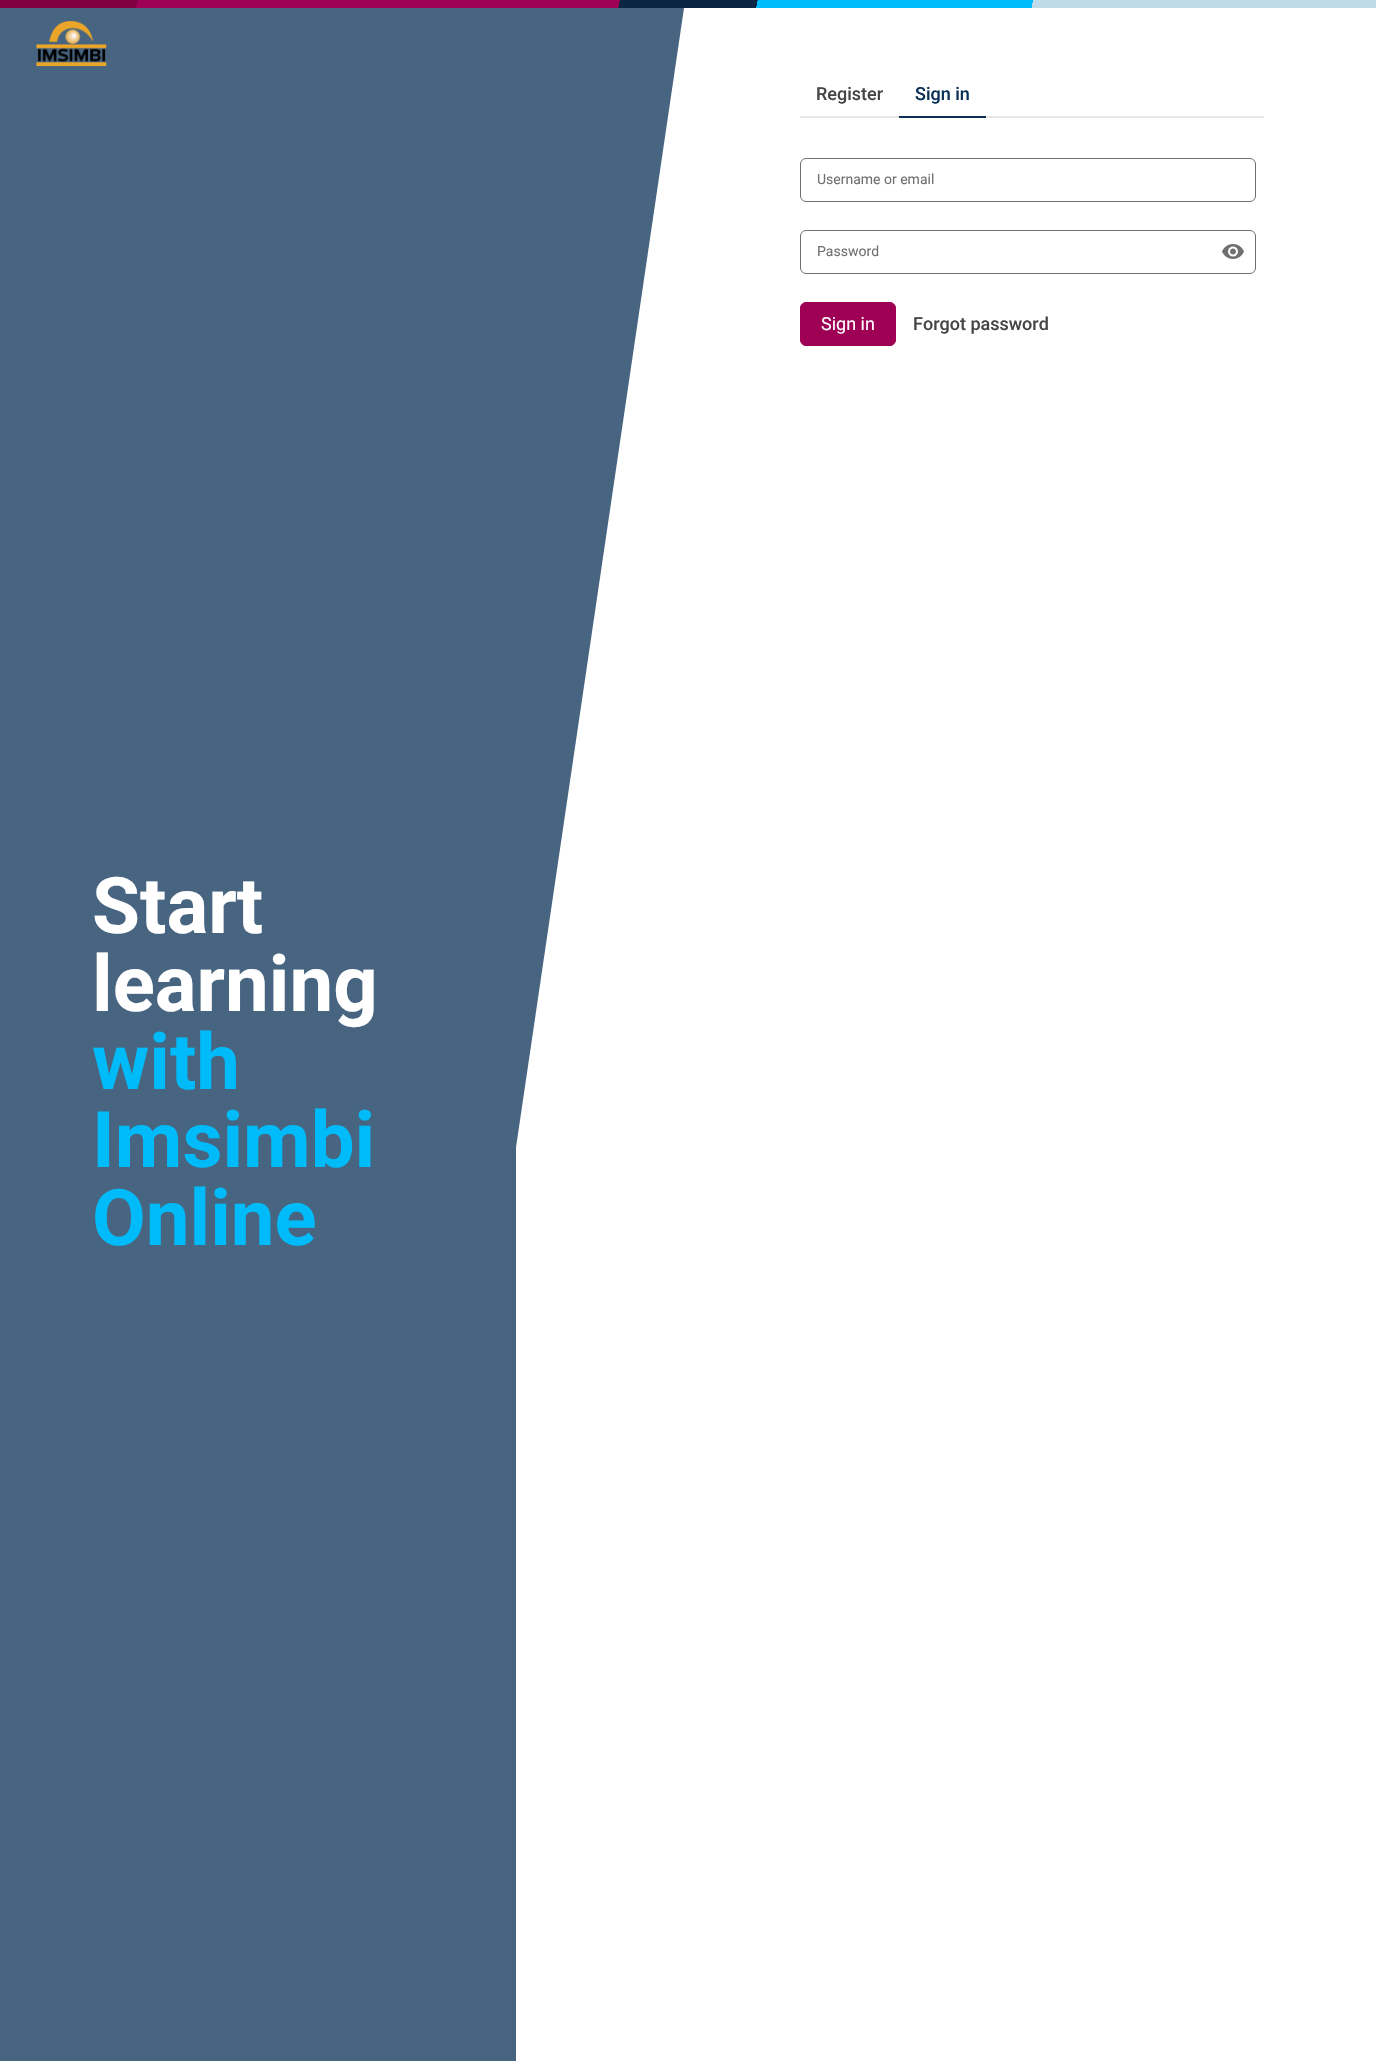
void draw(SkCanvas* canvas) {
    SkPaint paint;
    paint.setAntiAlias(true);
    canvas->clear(0xFFFFFFFF);
    {
        const SkColor colors[] = {0xFF7E0043, 0xFF9D0054, 0xFF9D0054, 0xFF082644, 0xFF082644, 0xFF00BBF9, 0xFF00BBF9, 0xFFBFDBEA};
        const float stops[] = {0.1f, 0.1f, 0.45f, 0.45f, 0.55f, 0.55f, 0.75f, 0.75f};
        const SkPoint ends[] = {{29, -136}, {1347, 144}};
        paint.setShader(SkGradientShader::MakeLinear(ends, colors, stops, 8, SkTileMode::kClamp));
        paint.setAlpha(255);
    }
    canvas->drawRect(SkRect::MakeXYWH(0, 0, 1376, 8), paint);
    paint.setShader(nullptr);
    paint.setColor(0xFFE9E6E4);
    canvas->drawRect(SkRect::MakeXYWH(800, 116, 464, 2), paint);
    SkFont font1(fontMgr->matchFamilyStyle("Roboto", SkFontStyle(500, SkFontStyle::kNormal_Width, SkFontStyle::kUpright_Slant)), 18);
    font1.setSubpixel(true);
    paint.setColor(0xFF454545);
    canvas->drawString("Register", 816, 100, font1, paint);
    paint.setColor(0xFF0A3055);
    canvas->drawRect(SkRect::MakeXYWH(899, 116, 87, 2), paint);
    canvas->drawString("Sign in", 915, 100, font1, paint);
    paint.setStyle(SkPaint::kStroke_Style);
    paint.setStrokeWidth(1);
    paint.setColor(0xFF707070);
    canvas->drawRoundRect(SkRect::MakeXYWH(800.5f, 158.5f, 455, 43), 5.5f, 5.5f, paint);
    SkFont font2(fontMgr->matchFamilyStyle("Roboto", SkFontStyle::Normal()), 14);
    font2.setSubpixel(true);
    paint.setStyle(SkPaint::kFill_Style);
    canvas->drawString("Username or email", 817, 184, font2, paint);
    paint.setStyle(SkPaint::kStroke_Style);
    canvas->drawRoundRect(SkRect::MakeXYWH(800.5f, 230.5f, 455, 43), 5.5f, 5.5f, paint);
    paint.setStyle(SkPaint::kFill_Style);
    canvas->drawString("Password", 817, 256, font2, paint);
    canvas->drawImageRect(SkImages::DeferredFromEncodedData(SkData::MakeFromFileName("img1.png")), SkRect::MakeXYWH(1222, 244, 22, 15), SkSamplingOptions());
    paint.setColor(0xFF9D0054);
    canvas->drawRoundRect(SkRect::MakeXYWH(800.5f, 302.5f, 95, 43), 5.5f, 5.5f, paint);
    paint.setStyle(SkPaint::kStroke_Style);
    canvas->drawRoundRect(SkRect::MakeXYWH(800.5f, 302.5f, 95, 43), 5.5f, 5.5f, paint);
    SkFont font3(fontMgr->matchFamilyStyle("Roboto", SkFontStyle::Normal()), 18);
    font3.setSubpixel(true);
    paint.setStyle(SkPaint::kFill_Style);
    paint.setColor(0xFFFFFFFF);
    canvas->drawString("Sign in", 821, 330, font3, paint);
    paint.setColor(0xFF454545);
    canvas->drawString("Forgot password", 913, 330, font1, paint);
    paint.setColor(0xFF476480);
    canvas->drawRect(SkRect::MakeXYWH(0, 8, 516, 2053), paint);
    canvas->drawImageRect(SkImages::DeferredFromEncodedData(SkData::MakeFromFileName("img2.png")), SkRect::MakeXYWH(36, 21, 71, 46), SkSamplingOptions());
    SkFont font4(fontMgr->matchFamilyStyle("Roboto", SkFontStyle::Bold()), 78);
    font4.setSubpixel(true);
    paint.setColor(0xFFFFFFFF);
    canvas->drawString("Start", 92, 933, font4, paint);
    canvas->drawString("learning", 92, 1011, font4, paint);
    paint.setColor(0xFF00BBF9);
    canvas->drawString("with", 92, 1089, font4, paint);
    canvas->drawString("Imsimbi", 92, 1167, font4, paint);
    canvas->drawString("Online", 92, 1245, font4, paint);
    canvas->save();
    canvas->clipRect(SkRect::MakeXYWH(512, 8, 172, 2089));
    paint.setColor(0xFF476480);
    canvas->drawPath(SkPathBuilder().moveTo(512, 8).lineTo(684, 8).lineTo(376, 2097).lineTo(204, 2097).close().detach(), paint);
    canvas->restore();
}
